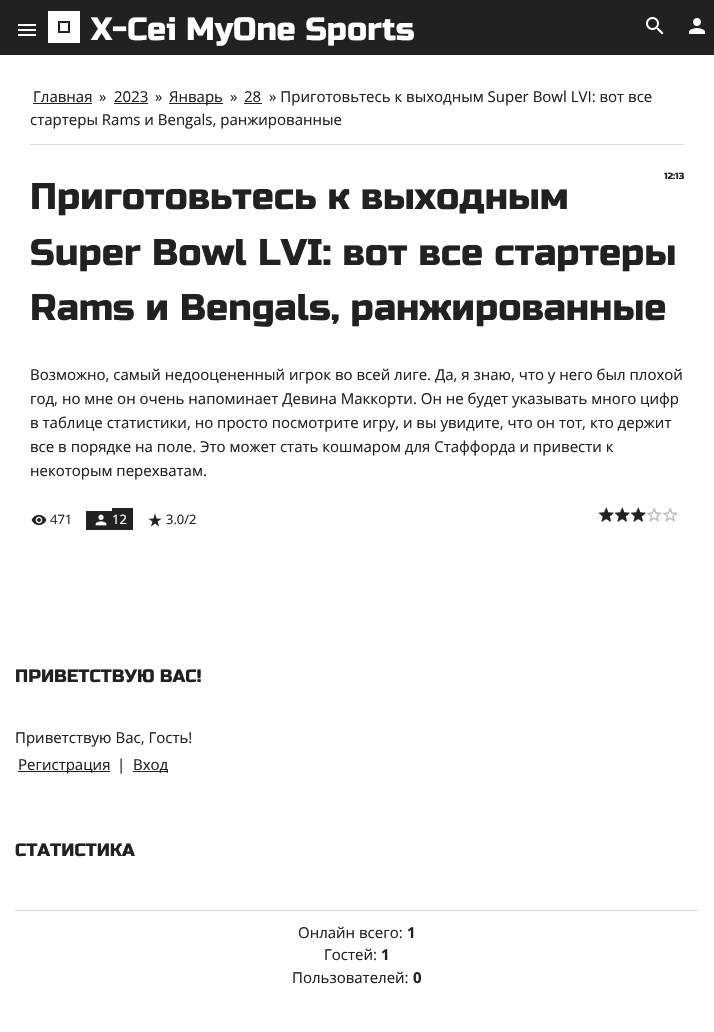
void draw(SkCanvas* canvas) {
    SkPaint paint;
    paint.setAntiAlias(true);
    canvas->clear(0xFFFFFFFF);
    paint.setColor(0xFF212121);
    canvas->drawRect(SkRect::MakeXYWH(0, 0, 714, 55), paint);
    canvas->drawImageRect(SkImages::DeferredFromEncodedData(SkData::MakeFromFileName("img1.png")), SkRect::MakeXYWH(18, 24, 18, 12), SkSamplingOptions());
    paint.setColor(0xFFFFFFFF);
    canvas->drawRect(SkRect::MakeXYWH(60, 23, 8, 8), paint);
    paint.setStyle(SkPaint::kStroke_Style);
    paint.setStrokeWidth(10);
    canvas->drawRect(SkRect::MakeXYWH(53, 16, 22, 22), paint);
    SkFont font1(fontMgr->matchFamilyStyle("Russo One", SkFontStyle::Normal()), 32);
    font1.setSubpixel(true);
    paint.setStyle(SkPaint::kFill_Style);
    canvas->drawString("X-Cei MyOne Sports", 91, 40, font1, paint);
    canvas->drawImageRect(SkImages::DeferredFromEncodedData(SkData::MakeFromFileName("img2.png")), SkRect::MakeXYWH(646, 17, 18, 18), SkSamplingOptions());
    canvas->drawImageRect(SkImages::DeferredFromEncodedData(SkData::MakeFromFileName("img3.png")), SkRect::MakeXYWH(689, 18, 16, 16), SkSamplingOptions());
    SkFont font2(fontMgr->matchFamilyStyle("Open Sans", SkFontStyle::Normal()), 15);
    font2.setSubpixel(true);
    paint.setColor(0xFF212121);
    canvas->drawString("Главная", 33, 102, font2, paint);
    canvas->drawRect(SkRect::MakeXYWH(33, 103, 59, 1), paint);
    canvas->drawString("»", 99, 102, font2, paint);
    canvas->drawString("2023", 114, 102, font2, paint);
    canvas->drawRect(SkRect::MakeXYWH(114, 103, 34, 1), paint);
    canvas->drawString("»", 155, 102, font2, paint);
    canvas->drawRect(SkRect::MakeXYWH(169, 103, 54, 1), paint);
    canvas->drawString("Январь", 169, 102, font2, paint);
    canvas->drawString("»", 230, 102, font2, paint);
    canvas->drawString("28", 244, 102, font2, paint);
    canvas->drawRect(SkRect::MakeXYWH(244, 103, 18, 1), paint);
    canvas->drawString("» Приготовьтесь к выходным Super Bowl LVI: вот все", 269, 102, font2, paint);
    canvas->drawString("стартеры Rams и Bengals, ранжированные", 30, 125, font2, paint);
    paint.setColor(0xFFDADADA);
    canvas->drawRect(SkRect::MakeXYWH(30, 144, 654, 1), paint);
    SkFont font3(fontMgr->matchFamilyStyle("Russo One", SkFontStyle::Normal()), 9);
    font3.setSubpixel(true);
    paint.setColor(0xFF212121);
    canvas->drawString("12:13", 664, 179, font3, paint);
    SkFont font4(fontMgr->matchFamilyStyle("Russo One", SkFontStyle::Normal()), 37);
    font4.setSubpixel(true);
    canvas->drawString("Приготовьтесь к выходным", 30, 209, font4, paint);
    canvas->drawString("Super Bowl LVI: вот все стартеры", 30, 265, font4, paint);
    canvas->drawString("Rams и Bengals, ранжированные", 30, 320, font4, paint);
    canvas->drawString("Возможно, самый недооцененный игрок во всей лиге. Да, я знаю, что у него был плохой", 30, 380, font2, paint);
    canvas->drawString("год, но мне он очень напоминает Девина Маккорти. Он не будет указывать много цифр", 30, 404, font2, paint);
    canvas->drawString("в таблице статистики, но просто посмотрите игру, и вы увидите, что он тот, кто держит", 30, 428, font2, paint);
    canvas->drawString("все в порядке на поле. Это может стать кошмаром для Стаффорда и привести к", 30, 452, font2, paint);
    canvas->drawString("некоторым перехватам.", 30, 476, font2, paint);
    canvas->drawImageRect(SkImages::DeferredFromEncodedData(SkData::MakeFromFileName("img4.png")), SkRect::MakeXYWH(31, 515, 16, 10), SkSamplingOptions());
    SkFont font5(fontMgr->matchFamilyStyle("Open Sans", SkFontStyle::Normal()), 13);
    font5.setSubpixel(true);
    canvas->drawString("471", 50, 524, font5, paint);
    canvas->drawRect(SkRect::MakeXYWH(86, 511, 26, 19), paint);
    canvas->drawRect(SkRect::MakeXYWH(112, 508, 21, 22), paint);
    canvas->drawImageRect(SkImages::DeferredFromEncodedData(SkData::MakeFromFileName("img5.png")), SkRect::MakeXYWH(95, 514, 12, 12), SkSamplingOptions());
    paint.setColor(0xFFFFFFFF);
    canvas->drawString("12", 112, 524, font5, paint);
    canvas->drawImageRect(SkImages::DeferredFromEncodedData(SkData::MakeFromFileName("img6.png")), SkRect::MakeXYWH(148, 513, 14, 14), SkSamplingOptions());
    paint.setColor(0xFF212121);
    canvas->drawString("3.0/2", 166, 524, font5, paint);
    canvas->drawImageRect(SkImages::DeferredFromEncodedData(SkData::MakeFromFileName("img7.png")), SkRect::MakeXYWH(599, 507, 79, 15), SkSamplingOptions());
    canvas->drawImageRect(SkImages::DeferredFromEncodedData(SkData::MakeFromFileName("img8.png")), SkRect::MakeXYWH(599, 507, 47, 15), SkSamplingOptions());
    SkFont font6(fontMgr->matchFamilyStyle("Russo One", SkFontStyle::Normal()), 18);
    font6.setSubpixel(true);
    canvas->drawString("ПРИВЕТСТВУЮ ВАС!", 15, 682, font6, paint);
    canvas->drawString("Приветствую Вас, Гость!", 15, 743, font2, paint);
    canvas->drawRect(SkRect::MakeXYWH(18, 771, 92, 1), paint);
    canvas->drawString("Регистрация", 18, 770, font2, paint);
    canvas->drawString("|", 117, 770, font2, paint);
    canvas->drawRect(SkRect::MakeXYWH(133, 771, 35, 1), paint);
    canvas->drawString("Вход", 133, 770, font2, paint);
    canvas->drawString("СТАТИСТИКА", 15, 856, font6, paint);
    paint.setColor(0xFFDADADA);
    canvas->drawRect(SkRect::MakeXYWH(15, 910, 684, 1), paint);
    paint.setColor(0xFF212121);
    canvas->drawString("Онлайн всего:", 298, 938, font2, paint);
    SkFont font7(fontMgr->matchFamilyStyle("Open Sans", SkFontStyle::Bold()), 15);
    font7.setSubpixel(true);
    canvas->drawString("1", 407, 938, font7, paint);
    canvas->drawString("Гостей:", 324, 960, font2, paint);
    canvas->drawString("1", 381, 960, font7, paint);
    canvas->drawString("Пользователей:", 292, 983, font2, paint);
    canvas->drawString("0", 413, 983, font7, paint);
}
